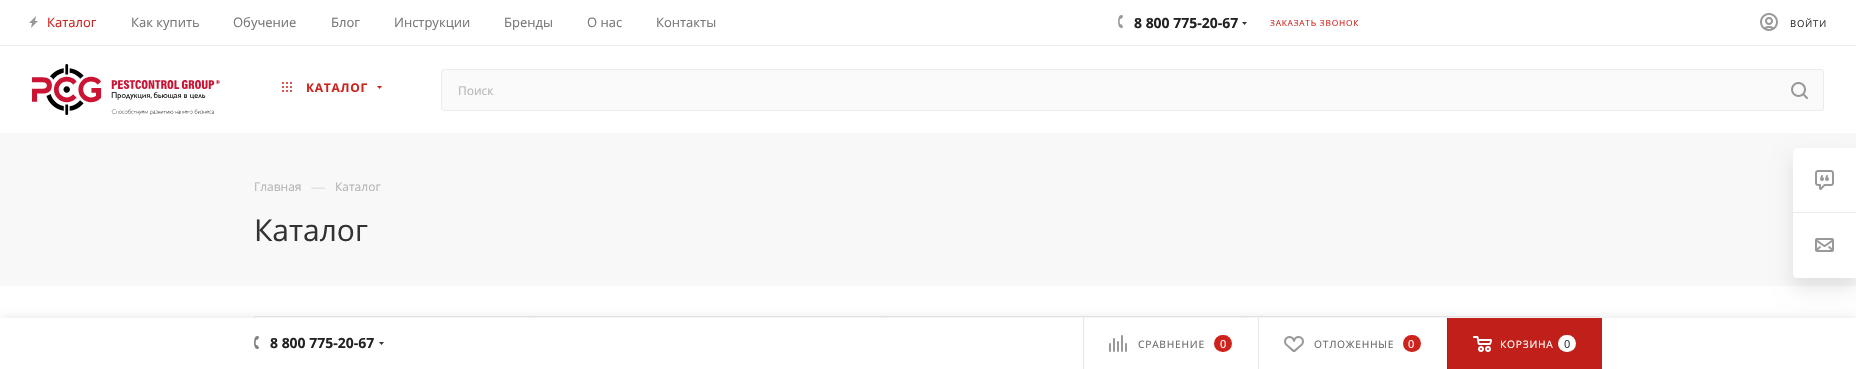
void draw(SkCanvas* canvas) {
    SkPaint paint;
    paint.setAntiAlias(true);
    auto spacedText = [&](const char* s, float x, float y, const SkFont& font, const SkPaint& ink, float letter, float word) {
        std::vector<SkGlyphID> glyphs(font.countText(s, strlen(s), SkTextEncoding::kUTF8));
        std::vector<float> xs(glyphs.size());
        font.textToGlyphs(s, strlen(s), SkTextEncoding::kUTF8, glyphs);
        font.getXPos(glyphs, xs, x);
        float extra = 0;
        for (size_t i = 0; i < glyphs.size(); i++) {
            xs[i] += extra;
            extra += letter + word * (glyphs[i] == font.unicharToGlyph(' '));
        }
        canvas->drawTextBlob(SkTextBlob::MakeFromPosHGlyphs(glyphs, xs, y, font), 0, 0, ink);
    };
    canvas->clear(0xFFFFFFFF);
    paint.setColor(0xFFECECEC);
    canvas->drawRect(SkRect::MakeXYWH(0, 45, 1856, 1), paint);
    canvas->drawImageRect(SkImages::DeferredFromEncodedData(SkData::MakeFromFileName("img1.png")), SkRect::MakeXYWH(29, 16, 9, 12), SkSamplingOptions());
    SkFont font1(fontMgr->matchFamilyStyle("Open Sans", SkFontStyle::Normal()), 13);
    font1.setSubpixel(true);
    paint.setColor(0xFFCE221C);
    canvas->drawString("Каталог", 47, 27, font1, paint);
    paint.setColor(0xFF777777);
    canvas->drawString("Как купить", 131, 27, font1, paint);
    canvas->drawString("Обучение", 233, 27, font1, paint);
    canvas->drawString("Блог", 331, 27, font1, paint);
    canvas->drawString("Инструкции", 394, 27, font1, paint);
    canvas->drawString("Бренды", 504, 27, font1, paint);
    canvas->drawString("О нас", 587, 27, font1, paint);
    canvas->drawString("Контакты", 656, 27, font1, paint);
    canvas->drawImageRect(SkImages::DeferredFromEncodedData(SkData::MakeFromFileName("img2.png")), SkRect::MakeXYWH(1118, 15, 5, 13), SkSamplingOptions());
    SkFont font2(fontMgr->matchFamilyStyle("Open Sans", SkFontStyle::Bold()), 14);
    font2.setSubpixel(true);
    paint.setColor(0xFF222222);
    canvas->drawString("8 800 775-20-67", 1134, 28, font2, paint);
    paint.setColor(0xFF333333);
    canvas->drawPath(SkPathBuilder(SkPathFillType::kEvenOdd).moveTo(1242, 22).lineTo(1247, 22).lineTo(1244.5f, 25).close().detach(), paint);
    SkFont font3(fontMgr->matchFamilyStyle("Open Sans", SkFontStyle::Normal()), 8.4f);
    font3.setSubpixel(true);
    paint.setColor(0xFFCE221C);
    spacedText("ЗАКАЗАТЬ ЗВОНОК", 1270, 26, font3, paint, 0.75f, 0);
    canvas->drawImageRect(SkImages::DeferredFromEncodedData(SkData::MakeFromFileName("img3.png")), SkRect::MakeXYWH(1760, 13, 18, 18), SkSamplingOptions());
    SkFont font4(fontMgr->matchFamilyStyle("Open Sans", SkFontStyle::Normal()), 9.5f);
    font4.setSubpixel(true);
    paint.setColor(0xFF333333);
    spacedText("ВОЙТИ", 1790, 27, font4, paint, 0.75f, 0);
    canvas->drawImageRect(SkImages::DeferredFromEncodedData(SkData::MakeFromFileName("img4.png")), SkRect::MakeXYWH(32, 64, 188, 51), SkSamplingOptions());
    canvas->drawImageRect(SkImages::DeferredFromEncodedData(SkData::MakeFromFileName("img5.png")), SkRect::MakeXYWH(282, 82, 10, 10), SkSamplingOptions());
    SkFont font5(fontMgr->matchFamilyStyle("Open Sans", SkFontStyle::Bold()), 12);
    font5.setSubpixel(true);
    paint.setColor(0xFFCE221C);
    spacedText("КАТАЛОГ", 306, 92, font5, paint, 0.75f, 0);
    canvas->drawPath(SkPathBuilder(SkPathFillType::kEvenOdd).moveTo(377, 86).lineTo(382, 86).lineTo(379.5f, 89).close().detach(), paint);
    paint.setColor(0xFFFAFAFA);
    canvas->drawRoundRect(SkRect::MakeXYWH(441.5f, 69.5f, 1382, 41), 2.5f, 2.5f, paint);
    paint.setStyle(SkPaint::kStroke_Style);
    paint.setStrokeWidth(1);
    paint.setColor(0xFFECECEC);
    canvas->drawRoundRect(SkRect::MakeXYWH(441.5f, 69.5f, 1382, 41), 2.5f, 2.5f, paint);
    SkFont font6(fontMgr->matchFamilyStyle("Open Sans", SkFontStyle::Normal()), 12);
    font6.setSubpixel(true);
    paint.setStyle(SkPaint::kFill_Style);
    paint.setColor(0xFFB6B5B5);
    canvas->drawString("Поиск", 458, 95, font6, paint);
    canvas->drawImageRect(SkImages::DeferredFromEncodedData(SkData::MakeFromFileName("img6.png")), SkRect::MakeXYWH(1791, 82, 17, 17), SkSamplingOptions());
    paint.setColor(0xFFF8F8F8);
    canvas->drawRect(SkRect::MakeXYWH(0, 133, 1856, 153), paint);
    paint.setColor(0xFFB6B5B5);
    canvas->drawString("Главная", 254, 191, font6, paint);
    SkFont font7(fontMgr->matchFamilyStyle("Open Sans", SkFontStyle::Normal()), 14);
    font7.setSubpixel(true);
    paint.setColor(0xFFDDDDDD);
    canvas->drawString("—", 311, 192, font7, paint);
    paint.setColor(0xFFB6B5B5);
    canvas->drawString("Каталог", 335, 191, font6, paint);
    SkFont font8(fontMgr->matchFamilyStyle("Open Sans", SkFontStyle::Normal()), 30);
    font8.setSubpixel(true);
    paint.setColor(0xFF333333);
    canvas->drawString("Каталог", 254, 241, font8, paint);
    paint.setStyle(SkPaint::kStroke_Style);
    paint.setColor(0xFFECECEC);
    canvas->drawRect(SkRect::MakeXYWH(530.5f, 316.5f, 356, 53), paint);
    paint.setStyle(SkPaint::kFill_Style);
    canvas->drawRect(SkRect::MakeXYWH(254, 316, 277, 1), paint);
    canvas->drawRect(SkRect::MakeXYWH(254, 316, 1, 2), paint);
    paint.setStyle(SkPaint::kStroke_Style);
    canvas->drawRect(SkRect::MakeXYWH(886.5f, 316.5f, 356, 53), paint);
    canvas->drawRect(SkRect::MakeXYWH(1242.5f, 316.5f, 356, 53), paint);
    paint.setStyle(SkPaint::kFill_Style);
    paint.setColor(0x1A000000);
    paint.setMaskFilter(SkMaskFilter::MakeBlur(kNormal_SkBlurStyle, 5));
    canvas->drawRect(SkRect::MakeXYWH(2, 318, 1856, 51), paint);
    paint.setMaskFilter(nullptr);
    paint.setColor(0xFFFFFFFF);
    canvas->drawRect(SkRect::MakeXYWH(0, 318, 1856, 51), paint);
    paint.setColor(0x1A000000);
    paint.setMaskFilter(SkMaskFilter::MakeBlur(kNormal_SkBlurStyle, 10));
    canvas->drawRoundRect(SkRect::MakeXYWH(1793, 158, 63, 130), 4, 4, paint);
    paint.setMaskFilter(nullptr);
    paint.setColor(0xFFFFFFFF);
    canvas->drawPath(SkPathBuilder().moveTo(1797, 148).lineTo(1856, 148).lineTo(1856, 278).lineTo(1797, 278).cubicTo(1795, 278, 1793, 276, 1793, 274).lineTo(1793, 152).cubicTo(1793, 150, 1795, 148, 1797, 148).close().detach(), paint);
    paint.setColor(0xFFECECEC);
    canvas->drawRect(SkRect::MakeXYWH(1793, 212, 63, 1), paint);
    canvas->drawImageRect(SkImages::DeferredFromEncodedData(SkData::MakeFromFileName("img7.png")), SkRect::MakeXYWH(1815, 170, 19, 20), SkSamplingOptions());
    canvas->drawImageRect(SkImages::DeferredFromEncodedData(SkData::MakeFromFileName("img8.png")), SkRect::MakeXYWH(1815, 238, 19, 14), SkSamplingOptions());
    canvas->drawImageRect(SkImages::DeferredFromEncodedData(SkData::MakeFromFileName("img9.png")), SkRect::MakeXYWH(254, 336, 5, 13), SkSamplingOptions());
    paint.setColor(0xFF222222);
    canvas->drawString("8 800 775-20-67", 270, 348, font2, paint);
    paint.setColor(0xFF333333);
    canvas->drawPath(SkPathBuilder(SkPathFillType::kEvenOdd).moveTo(379, 342).lineTo(384, 342).lineTo(381.5f, 345).close().detach(), paint);
    paint.setColor(0xFFE6E6E6);
    canvas->drawRect(SkRect::MakeXYWH(1083, 318, 1, 51), paint);
    canvas->drawImageRect(SkImages::DeferredFromEncodedData(SkData::MakeFromFileName("img10.png")), SkRect::MakeXYWH(1109, 335, 18, 17), SkSamplingOptions());
    SkFont font9(fontMgr->matchFamilyStyle("Open Sans", SkFontStyle::Normal()), 10.25f);
    font9.setSubpixel(true);
    paint.setColor(0xFF666666);
    spacedText("СРАВНЕНИЕ", 1138, 348, font9, paint, 0.75f, 0);
    paint.setColor(0xFFCE221C);
    canvas->drawRoundRect(SkRect::MakeXYWH(1214, 335, 18, 17), 8.5f, 8.5f, paint);
    SkFont font10(fontMgr->matchFamilyStyle("Open Sans", SkFontStyle::Normal()), 11);
    font10.setSubpixel(true);
    paint.setColor(0xFFFFFFFF);
    canvas->drawString("0", 1220, 348, font10, paint);
    paint.setColor(0xFFE6E6E6);
    canvas->drawRect(SkRect::MakeXYWH(1258, 318, 1, 51), paint);
    canvas->drawImageRect(SkImages::DeferredFromEncodedData(SkData::MakeFromFileName("img11.png")), SkRect::MakeXYWH(1284, 336, 20, 16), SkSamplingOptions());
    paint.setColor(0xFF666666);
    spacedText("ОТЛОЖЕННЫЕ", 1314, 348, font9, paint, 0.75f, 0);
    paint.setColor(0xFFCE221C);
    canvas->drawRoundRect(SkRect::MakeXYWH(1403, 335, 18, 17), 8.5f, 8.5f, paint);
    paint.setColor(0xFFFFFFFF);
    canvas->drawString("0", 1408, 348, font10, paint);
    paint.setColor(0xFFC1201A);
    canvas->drawRect(SkRect::MakeXYWH(1448, 318, 154, 51), paint);
    paint.setColor(0xFFAE1D17);
    canvas->drawRect(SkRect::MakeXYWH(1447, 318, 1, 51), paint);
    canvas->drawImageRect(SkImages::DeferredFromEncodedData(SkData::MakeFromFileName("img12.png")), SkRect::MakeXYWH(1473, 336, 19, 16), SkSamplingOptions());
    paint.setColor(0xFFFFFFFF);
    spacedText("КОРЗИНА", 1500, 348, font9, paint, 0.75f, 0);
    canvas->drawRoundRect(SkRect::MakeXYWH(1558, 335, 18, 17), 8.5f, 8.5f, paint);
    paint.setColor(0xFF333333);
    canvas->drawString("0", 1564, 348, font10, paint);
}
